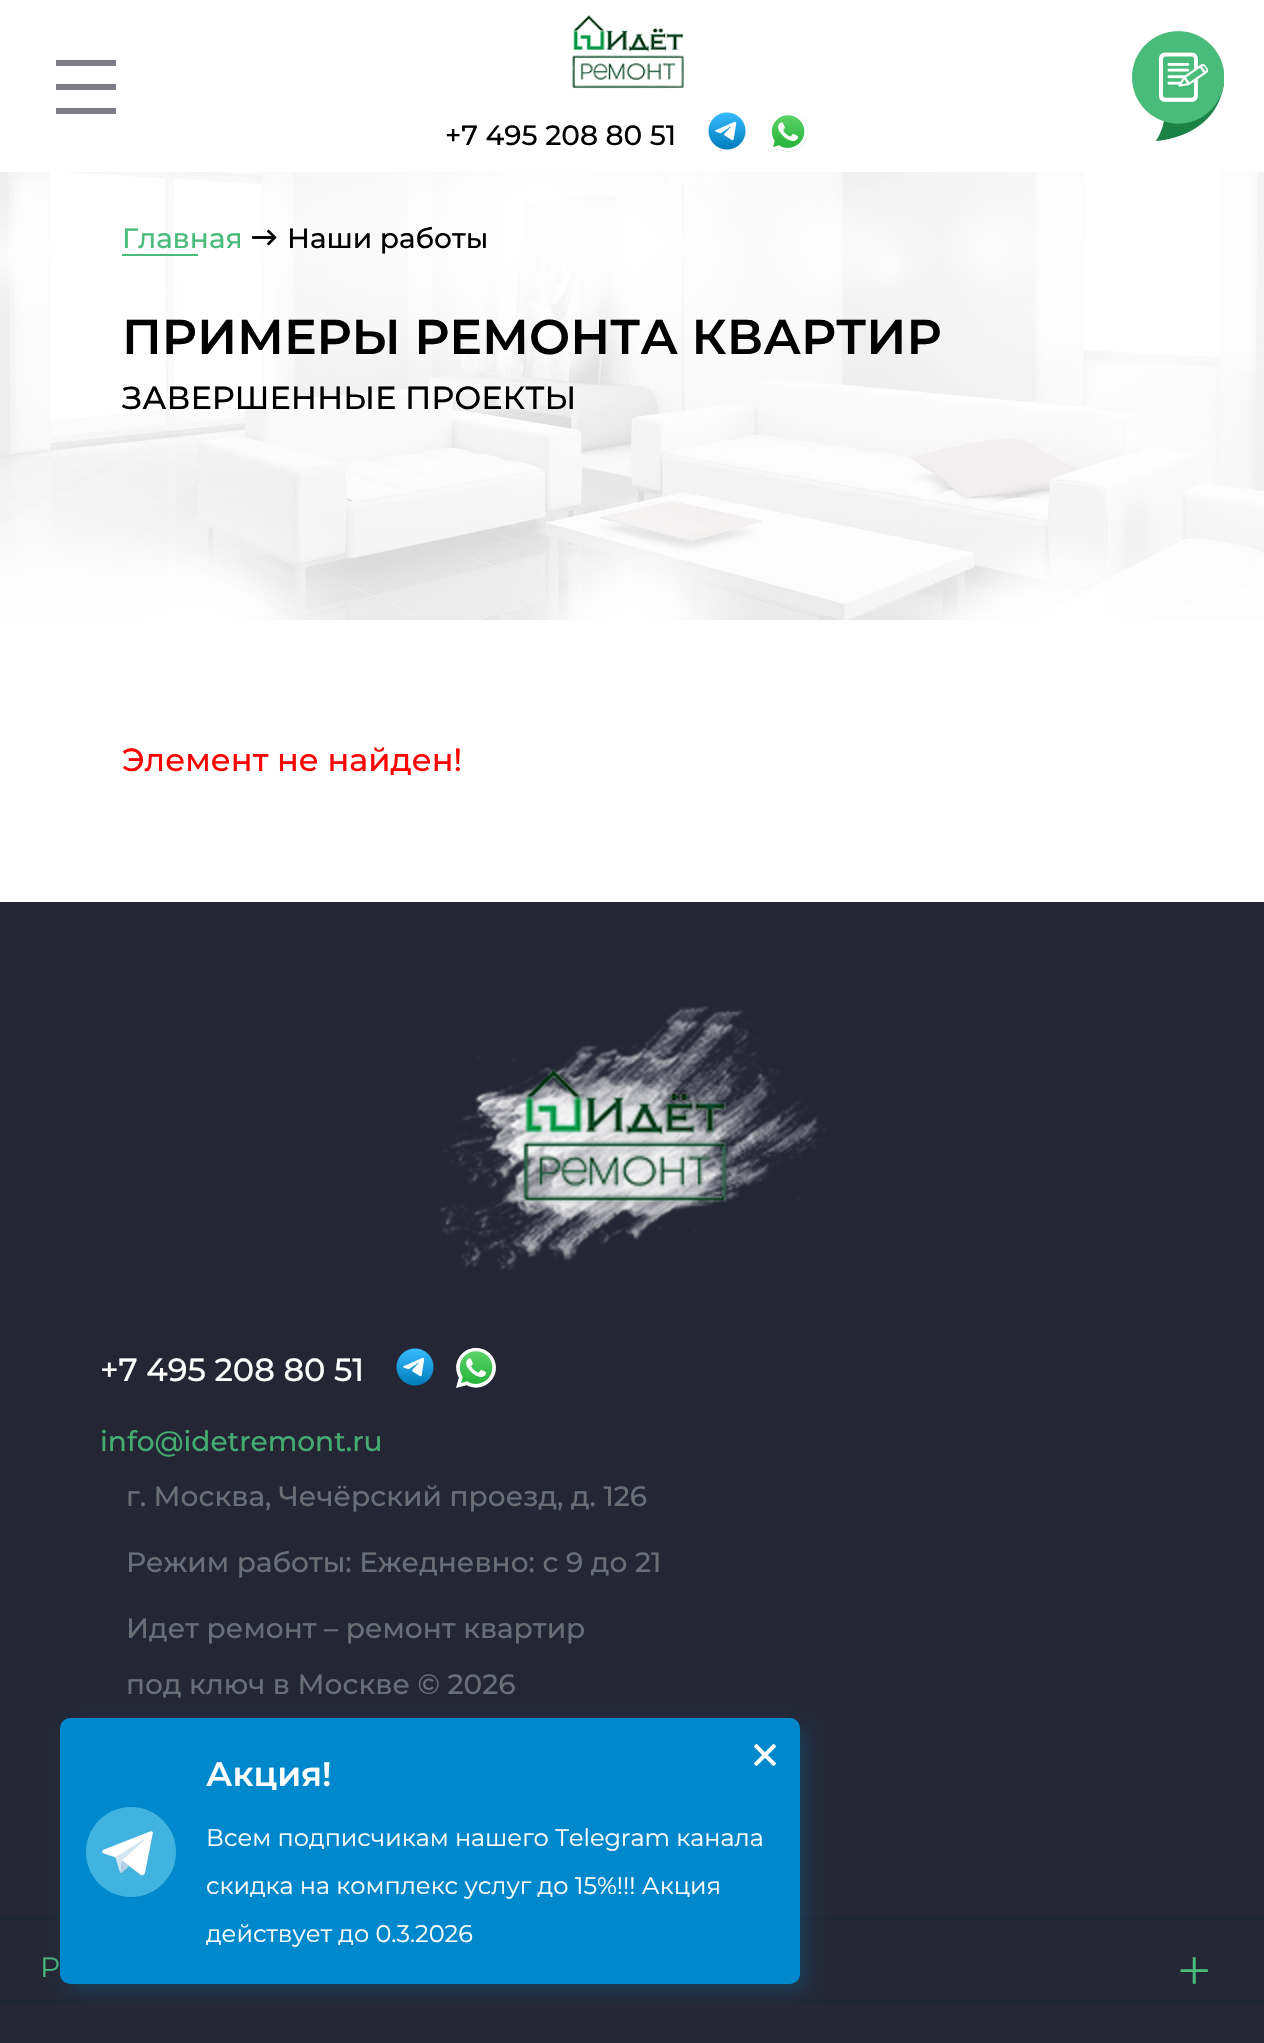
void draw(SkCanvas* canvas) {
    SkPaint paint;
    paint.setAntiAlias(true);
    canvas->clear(0xFFFFFFFF);
    paint.setColor(0xFF7C7D86);
    canvas->drawRect(SkRect::MakeXYWH(56, 108, 60, 6), paint);
    canvas->drawRect(SkRect::MakeXYWH(56, 60, 60, 6), paint);
    canvas->drawRect(SkRect::MakeXYWH(56, 84, 60, 6), paint);
    canvas->drawImageRect(SkImages::DeferredFromEncodedData(SkData::MakeFromFileName("img1.png")), SkRect::MakeXYWH(1132, 31, 92, 110), SkSamplingOptions());
    canvas->drawImageRect(SkImages::DeferredFromEncodedData(SkData::MakeFromFileName("img2.png")), SkRect::MakeXYWH(572, 15, 112, 74), SkSamplingOptions());
    SkFont font1(fontMgr->matchFamilyStyle("Montserrat", SkFontStyle(500, SkFontStyle::kNormal_Width, SkFontStyle::kUpright_Slant)), 28);
    font1.setSubpixel(true);
    paint.setColor(0xFF000000);
    canvas->drawString("+7 495 208 80 51", 445, 145, font1, paint);
    canvas->drawImageRect(SkImages::DeferredFromEncodedData(SkData::MakeFromFileName("img3.png")), SkRect::MakeXYWH(708, 112, 38, 38), SkSamplingOptions());
    canvas->drawImageRect(SkImages::DeferredFromEncodedData(SkData::MakeFromFileName("img4.png")), SkRect::MakeXYWH(768, 112, 40, 40), SkSamplingOptions());
    canvas->drawImageRect(SkImages::DeferredFromEncodedData(SkData::MakeFromFileName("img5.png")), SkRect::MakeXYWH(0, 172, 1264, 448), SkSamplingOptions());
    paint.setColor(0xFF49BB7B);
    canvas->drawString("Главная", 122, 248, font1, paint);
    canvas->drawRect(SkRect::MakeXYWH(122, 254, 76, 2), paint);
    canvas->drawImageRect(SkImages::DeferredFromEncodedData(SkData::MakeFromFileName("img6.png")), SkRect::MakeXYWH(252, 229, 25, 17), SkSamplingOptions());
    paint.setColor(0xFF000000);
    canvas->drawString("Наши работы", 287, 248, font1, paint);
    SkFont font2(fontMgr->matchFamilyStyle("Montserrat", SkFontStyle(600, SkFontStyle::kNormal_Width, SkFontStyle::kUpright_Slant)), 48.75f);
    font2.setSubpixel(true);
    canvas->drawString("ПРИМЕРЫ РЕМОНТА КВАРТИР", 122, 354, font2, paint);
    SkFont font3(fontMgr->matchFamilyStyle("Montserrat", SkFontStyle(500, SkFontStyle::kNormal_Width, SkFontStyle::kUpright_Slant)), 32);
    font3.setSubpixel(true);
    canvas->drawString("ЗАВЕРШЕННЫЕ ПРОЕКТЫ", 122, 409, font3, paint);
    paint.setColor(0xFFFF0000);
    canvas->drawString("Элемент не найден!", 122, 771, font3, paint);
    paint.setColor(0xFF242635);
    canvas->drawRect(SkRect::MakeXYWH(0, 902, 1264, 1141), paint);
    canvas->drawImageRect(SkImages::DeferredFromEncodedData(SkData::MakeFromFileName("img7.png")), SkRect::MakeXYWH(440, 1006, 386, 264), SkSamplingOptions());
    paint.setColor(0xFFFFFFFF);
    canvas->drawString("+7 495 208 80 51", 100, 1381, font3, paint);
    canvas->drawImageRect(SkImages::DeferredFromEncodedData(SkData::MakeFromFileName("img8.png")), SkRect::MakeXYWH(396, 1348, 38, 38), SkSamplingOptions());
    canvas->drawImageRect(SkImages::DeferredFromEncodedData(SkData::MakeFromFileName("img9.png")), SkRect::MakeXYWH(456, 1348, 40, 40), SkSamplingOptions());
    paint.setColor(0xFF44AB71);
    canvas->drawString("info@idetremont.ru", 100, 1451, font1, paint);
    paint.setColor(0xFF6A6F77);
    canvas->drawString("г. Москва, Чечёрский проезд, д. 126", 126, 1506, font1, paint);
    canvas->drawString("Режим работы: Ежедневно: с 9 до 21", 126, 1572, font1, paint);
    canvas->drawString("Идет ремонт – ремонт квартир", 126, 1638, font1, paint);
    canvas->drawString("под ключ в Москве © 2026", 126, 1694, font1, paint);
    paint.setColor(0xFF202533);
    canvas->drawRect(SkRect::MakeXYWH(0, 1916, 1264, 4), paint);
    SkFont font4(fontMgr->matchFamilyStyle("Montserrat", SkFontStyle::Normal()), 28);
    font4.setSubpixel(true);
    paint.setColor(0xFF49BB7B);
    canvas->drawString("Р", 40, 1977, font4, paint);
    SkFont font5(fontMgr->matchFamilyStyle("Montserrat", SkFontStyle(300, SkFontStyle::kNormal_Width, SkFontStyle::kUpright_Slant)), 64);
    font5.setSubpixel(true);
    canvas->drawString("+", 1176, 1993, font5, paint);
    paint.setColor(0xFF202533);
    canvas->drawRect(SkRect::MakeXYWH(0, 2000, 1264, 4), paint);
    paint.setColor(0x91144E6B);
    paint.setMaskFilter(SkMaskFilter::MakeBlur(kNormal_SkBlurStyle, 10));
    canvas->drawRoundRect(SkRect::MakeXYWH(68, 1726, 740, 266), 10, 10, paint);
    paint.setMaskFilter(nullptr);
    paint.setColor(0xFF0088CC);
    canvas->drawRoundRect(SkRect::MakeXYWH(60, 1718, 740, 266), 10, 10, paint);
    canvas->drawImageRect(SkImages::DeferredFromEncodedData(SkData::MakeFromFileName("img10.png")), SkRect::MakeXYWH(754, 1744, 22, 22), SkSamplingOptions());
    canvas->drawImageRect(SkImages::DeferredFromEncodedData(SkData::MakeFromFileName("img11.png")), SkRect::MakeXYWH(86, 1807, 90, 90), SkSamplingOptions());
    SkFont font6(fontMgr->matchFamilyStyle("Montserrat", SkFontStyle(600, SkFontStyle::kNormal_Width, SkFontStyle::kUpright_Slant)), 34);
    font6.setSubpixel(true);
    paint.setColor(0xFFFFFFFF);
    canvas->drawString("Акция!", 206, 1786, font6, paint);
    SkFont font7(fontMgr->matchFamilyStyle("Montserrat", SkFontStyle::Normal()), 24);
    font7.setSubpixel(true);
    canvas->drawString("Всем подписчикам нашего Telegram канала", 206, 1846, font7, paint);
    canvas->drawString("скидка на комплекс услуг до 15%!!! Акция", 206, 1894, font7, paint);
    canvas->drawString("действует до 0.3.2026", 206, 1942, font7, paint);
}
